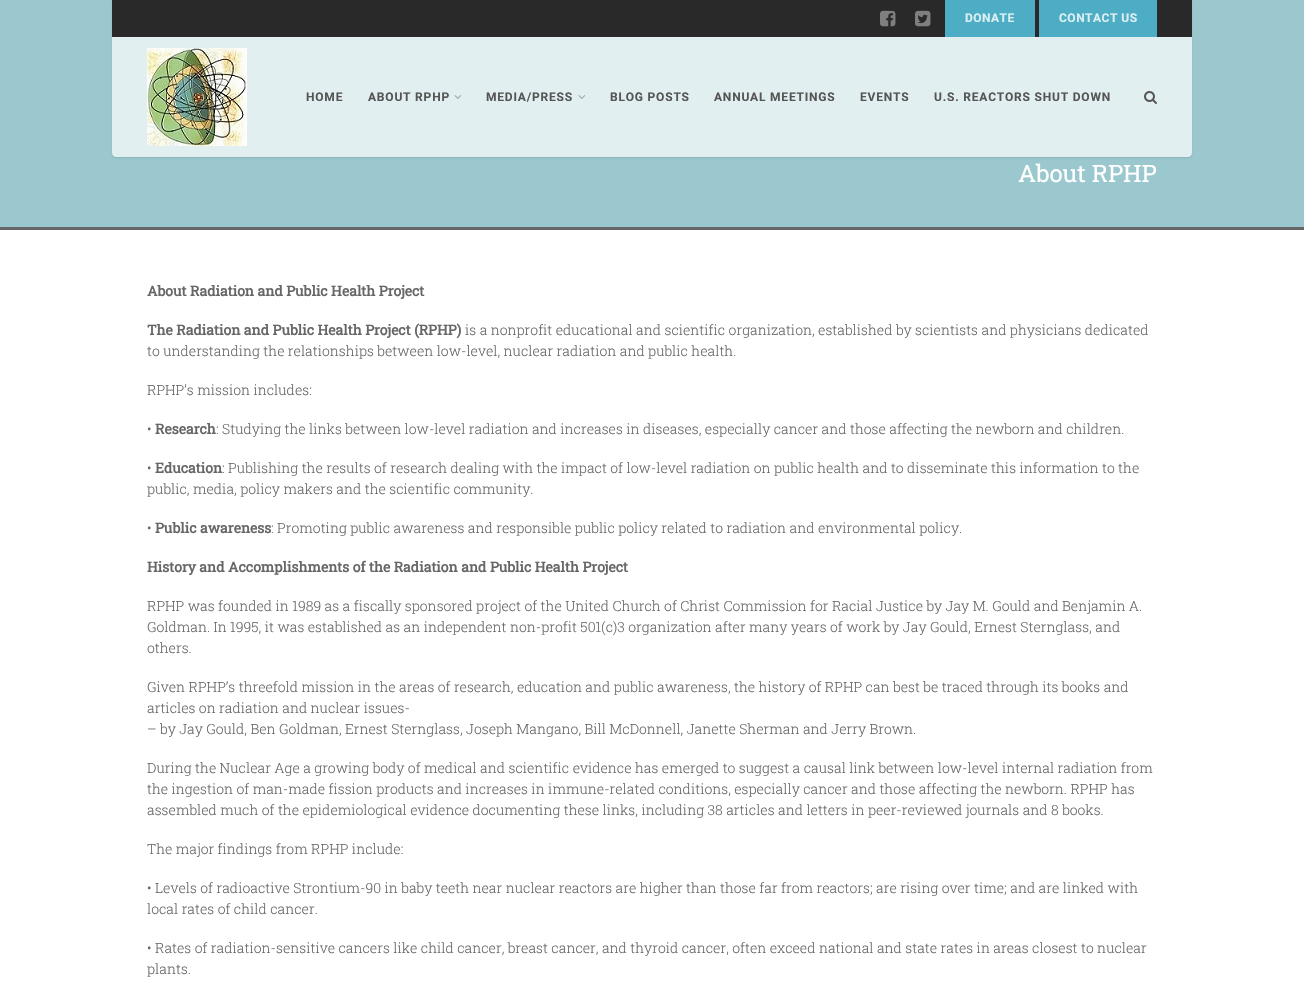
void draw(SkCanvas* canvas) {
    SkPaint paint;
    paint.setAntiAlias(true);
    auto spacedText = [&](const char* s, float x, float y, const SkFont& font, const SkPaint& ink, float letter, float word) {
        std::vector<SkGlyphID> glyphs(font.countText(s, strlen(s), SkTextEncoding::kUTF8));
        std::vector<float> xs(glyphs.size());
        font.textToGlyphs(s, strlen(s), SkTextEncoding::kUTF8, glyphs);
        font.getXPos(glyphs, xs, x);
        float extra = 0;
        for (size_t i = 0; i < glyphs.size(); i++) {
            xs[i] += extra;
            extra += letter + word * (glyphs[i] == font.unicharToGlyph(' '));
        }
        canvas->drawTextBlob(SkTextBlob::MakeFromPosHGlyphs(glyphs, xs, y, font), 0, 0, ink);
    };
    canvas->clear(0xFFFFFFFF);
    paint.setColor(0xFF9BC8CE);
    canvas->drawRect(SkRect::MakeXYWH(0, 0, 1304, 227), paint);
    canvas->save();
    canvas->clipPath(SkPathBuilder(SkPathFillType::kEvenOdd).moveTo(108, 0).lineTo(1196, 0).lineTo(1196, 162).lineTo(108, 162).close().moveTo(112, 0).lineTo(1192, 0).lineTo(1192, 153).cubicTo(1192, 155, 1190, 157, 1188, 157).lineTo(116, 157).cubicTo(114, 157, 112, 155, 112, 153).close().detach(), true);
    paint.setColor(0x1A000000);
    paint.setMaskFilter(SkMaskFilter::MakeBlur(kNormal_SkBlurStyle, 1));
    canvas->drawRoundRect(SkRect::MakeXYWH(112, 1, 1080, 157), 4, 4, paint);
    paint.setMaskFilter(nullptr);
    canvas->restore();
    paint.setColor(0xFF292929);
    canvas->drawRect(SkRect::MakeXYWH(112, 0, 1080, 37), paint);
    canvas->drawImageRect(SkImages::DeferredFromEncodedData(SkData::MakeFromFileName("img1.png")), SkRect::MakeXYWH(880, 10, 16, 17), SkSamplingOptions());
    canvas->drawImageRect(SkImages::DeferredFromEncodedData(SkData::MakeFromFileName("img2.png")), SkRect::MakeXYWH(915, 10, 16, 17), SkSamplingOptions());
    paint.setColor(0xFF4CADC5);
    canvas->drawRect(SkRect::MakeXYWH(945, 0, 90, 37), paint);
    SkFont font1(fontMgr->matchFamilyStyle("Roboto", SkFontStyle::Bold()), 12);
    font1.setSubpixel(true);
    paint.setColor(0xFFDBEFF3);
    spacedText("DONATE", 965, 22, font1, paint, 0.5f, 0);
    paint.setColor(0xFF4CADC5);
    canvas->drawRect(SkRect::MakeXYWH(1039, 0, 118, 37), paint);
    paint.setColor(0xFFDBEFF3);
    spacedText("CONTACT US", 1059, 22, font1, paint, 0.5f, 0);
    paint.setColor(0xB3FFFFFF);
    canvas->drawPath(SkPathBuilder().moveTo(112, 37).lineTo(1192, 37).lineTo(1192, 153).cubicTo(1192, 155, 1190, 157, 1188, 157).lineTo(116, 157).cubicTo(114, 157, 112, 155, 112, 153).close().detach(), paint);
    canvas->drawImageRect(SkImages::DeferredFromEncodedData(SkData::MakeFromFileName("img3.png")), SkRect::MakeXYWH(147, 48, 100, 98), SkSamplingOptions());
    paint.setColor(0xFF555555);
    spacedText("HOME", 306, 101, font1, paint, 0.8f, 0);
    spacedText("ABOUT RPHP", 368, 101, font1, paint, 0.8f, 0);
    canvas->drawImageRect(SkImages::DeferredFromEncodedData(SkData::MakeFromFileName("img4.png")), SkRect::MakeXYWH(454, 95, 8, 4), SkSamplingOptions());
    spacedText("MEDIA/PRESS", 486, 101, font1, paint, 0.8f, 0);
    canvas->drawImageRect(SkImages::DeferredFromEncodedData(SkData::MakeFromFileName("img4.png")), SkRect::MakeXYWH(578, 95, 8, 4), SkSamplingOptions());
    spacedText("BLOG POSTS", 610, 101, font1, paint, 0.8f, 0);
    spacedText("ANNUAL MEETINGS", 714, 101, font1, paint, 0.8f, 0);
    spacedText("EVENTS", 860, 101, font1, paint, 0.8f, 0);
    spacedText("U.S. REACTORS SHUT DOWN", 934, 101, font1, paint, 0.8f, 0);
    canvas->drawImageRect(SkImages::DeferredFromEncodedData(SkData::MakeFromFileName("img5.png")), SkRect::MakeXYWH(1144, 91, 13, 13), SkSamplingOptions());
    paint.setColor(0xFF666666);
    canvas->drawRect(SkRect::MakeXYWH(0, 227, 1304, 3), paint);
    SkFont font2(fontMgr->matchFamilyStyle("Roboto Slab", SkFontStyle::Normal()), 24);
    font2.setSubpixel(true);
    paint.setColor(0xFFFFFFFF);
    canvas->drawString("About RPHP", 1018, 182, font2, paint);
    SkFont font3(fontMgr->matchFamilyStyle("Roboto Slab", SkFontStyle::Bold()), 14);
    font3.setSubpixel(true);
    paint.setColor(0xFF666666);
    canvas->drawString("About Radiation and Public Health Project", 147, 296, font3, paint);
    canvas->drawString("The Radiation and Public Health Project (RPHP)", 147, 335, font3, paint);
    SkFont font4(fontMgr->matchFamilyStyle("Roboto Slab", SkFontStyle(300, SkFontStyle::kNormal_Width, SkFontStyle::kUpright_Slant)), 14);
    font4.setSubpixel(true);
    canvas->drawString("is a nonprofit educational and scientific organization, established by scientists and physicians dedicated", 465, 335, font4, paint);
    canvas->drawString("to understanding the relationships between low-level, nuclear radiation and public health.", 147, 356, font4, paint);
    canvas->drawString("RPHP’s mission includes:", 147, 395, font4, paint);
    canvas->drawString("•", 147, 434, font4, paint);
    canvas->drawString("Research", 155, 434, font3, paint);
    canvas->drawString(": Studying the links between low-level radiation and increases in diseases, especially cancer and those affecting the newborn and children.", 216, 434, font4, paint);
    canvas->drawString("•", 147, 473, font4, paint);
    canvas->drawString("Education", 155, 473, font3, paint);
    canvas->drawString(": Publishing the results of research dealing with the impact of low-level radiation on public health and to disseminate this information to the", 222, 473, font4, paint);
    canvas->drawString("public, media, policy makers and the scientific community.", 147, 494, font4, paint);
    canvas->drawString("•", 147, 533, font4, paint);
    canvas->drawString("Public awareness", 155, 533, font3, paint);
    canvas->drawString(": Promoting public awareness and responsible public policy related to radiation and environmental policy.", 271, 533, font4, paint);
    canvas->drawString("History and Accomplishments of the Radiation and Public Health Project", 147, 572, font3, paint);
    canvas->drawString("RPHP was founded in 1989 as a fiscally sponsored project of the United Church of Christ Commission for Racial Justice by Jay M. Gould and Benjamin A.", 147, 611, font4, paint);
    canvas->drawString("Goldman. In 1995, it was established as an independent non-profit 501(c)3 organization after many years of work by Jay Gould, Ernest Sternglass, and", 147, 632, font4, paint);
    canvas->drawString("others.", 147, 653, font4, paint);
    canvas->drawString("Given RPHP’s threefold mission in the areas of research, education and public awareness, the history of RPHP can best be traced through its books and", 147, 692, font4, paint);
    canvas->drawString("articles on radiation and nuclear issues-", 147, 713, font4, paint);
    canvas->drawString("– by Jay Gould, Ben Goldman, Ernest Sternglass, Joseph Mangano, Bill McDonnell, Janette Sherman and Jerry Brown.", 147, 734, font4, paint);
    canvas->drawString("During the Nuclear Age a growing body of medical and scientific evidence has emerged to suggest a causal link between low-level internal radiation from", 147, 773, font4, paint);
    canvas->drawString("the ingestion of man-made fission products and increases in immune-related conditions, especially cancer and those affecting the newborn. RPHP has", 147, 794, font4, paint);
    canvas->drawString("assembled much of the epidemiological evidence documenting these links, including 38 articles and letters in peer-reviewed journals and 8 books.", 147, 815, font4, paint);
    canvas->drawString("The major findings from RPHP include:", 147, 854, font4, paint);
    canvas->drawString("• Levels of radioactive Strontium-90 in baby teeth near nuclear reactors are higher than those far from reactors; are rising over time; and are linked with", 147, 893, font4, paint);
    canvas->drawString("local rates of child cancer.", 147, 914, font4, paint);
    canvas->drawString("• Rates of radiation-sensitive cancers like child cancer, breast cancer, and thyroid cancer, often exceed national and state rates in areas closest to nuclear", 147, 953, font4, paint);
    canvas->drawString("plants.", 147, 974, font4, paint);
}
